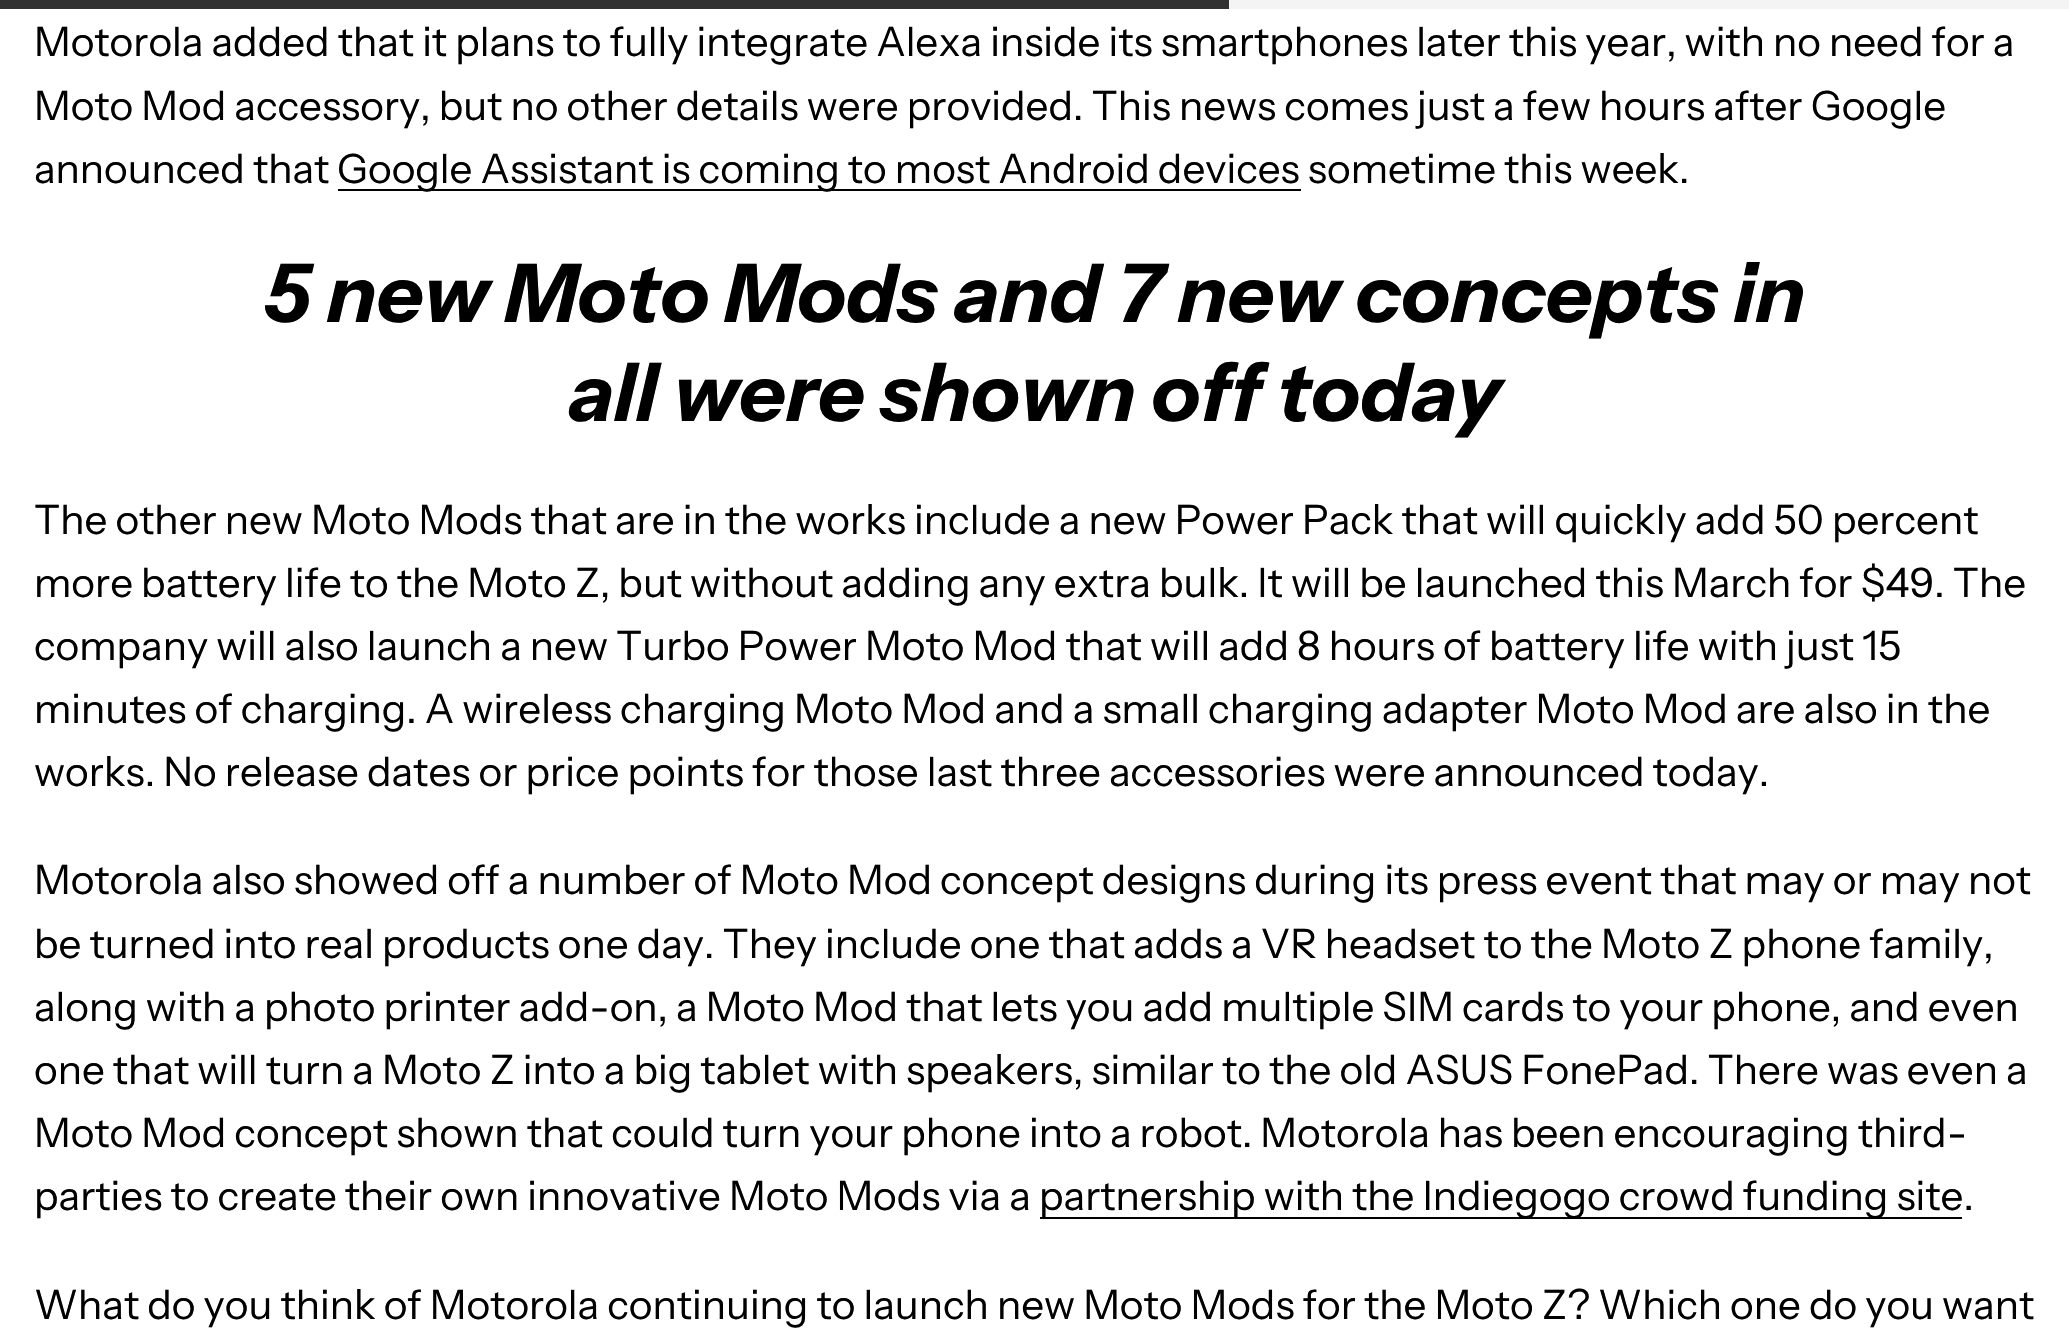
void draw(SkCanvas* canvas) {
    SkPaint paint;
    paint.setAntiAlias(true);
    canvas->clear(0xFFFFFFFF);
    paint.setColor(0xFFF4F4F4);
    canvas->drawRect(SkRect::MakeXYWH(1229, 0, 840, 9), paint);
    paint.setColor(0xFF313131);
    canvas->drawRect(SkRect::MakeXYWH(0, 0, 1229, 9), paint);
    SkFont font1(fontMgr->matchFamilyStyle("Instrument Sans", SkFontStyle::Normal()), 40.5f);
    font1.setSubpixel(true);
    paint.setColor(0xFF000000);
    canvas->drawString("Motorola added that it plans to fully integrate Alexa inside its smartphones later this year, with no need for a", 34, 56, font1, paint);
    canvas->drawString("Moto Mod accessory, but no other details were provided. This news comes just a few hours after Google", 34, 120, font1, paint);
    canvas->drawString("announced that", 34, 183, font1, paint);
    canvas->drawRect(SkRect::MakeXYWH(338, 189, 963, 2), paint);
    canvas->drawString("Google Assistant is coming to most Android devices sometime this week.", 337, 183, font1, paint);
    SkFont font2(fontMgr->matchFamilyStyle("Instrument Sans", SkFontStyle::BoldItalic()), 81);
    font2.setSubpixel(true);
    canvas->drawString("5 new Moto Mods and 7 new concepts in", 264, 322, font2, paint);
    canvas->drawString("all were shown off today", 568, 421, font2, paint);
    canvas->drawString("The other new Moto Mods that are in the works include a new Power Pack that will quickly add 50 percent", 34, 534, font1, paint);
    canvas->drawString("more battery life to the Moto Z, but without adding any extra bulk. It will be launched this March for $49. The", 34, 597, font1, paint);
    canvas->drawString("company will also launch a new Turbo Power Moto Mod that will add 8 hours of battery life with just 15", 34, 660, font1, paint);
    canvas->drawString("minutes of charging. A wireless charging Moto Mod and a small charging adapter Moto Mod are also in the", 34, 723, font1, paint);
    canvas->drawString("works. No release dates or price points for those last three accessories were announced today.", 34, 786, font1, paint);
    canvas->drawString("Motorola also showed off a number of Moto Mod concept designs during its press event that may or may not", 34, 894, font1, paint);
    canvas->drawString("be turned into real products one day. They include one that adds a VR headset to the Moto Z phone family,", 34, 958, font1, paint);
    canvas->drawString("along with a photo printer add-on, a Moto Mod that lets you add multiple SIM cards to your phone, and even", 34, 1021, font1, paint);
    canvas->drawString("one that will turn a Moto Z into a big tablet with speakers, similar to the old ASUS FonePad. There was even a", 34, 1084, font1, paint);
    canvas->drawString("Moto Mod concept shown that could turn your phone into a robot. Motorola has been encouraging third-", 34, 1147, font1, paint);
    canvas->drawString("parties to create their own innovative Moto Mods via a", 34, 1210, font1, paint);
    canvas->drawRect(SkRect::MakeXYWH(1040, 1217, 922, 2), paint);
    canvas->drawString("partnership with the Indiegogo crowd funding site.", 1039, 1210, font1, paint);
    canvas->drawString("What do you think of Motorola continuing to launch new Moto Mods for the Moto Z? Which one do you want", 34, 1319, font1, paint);
}
